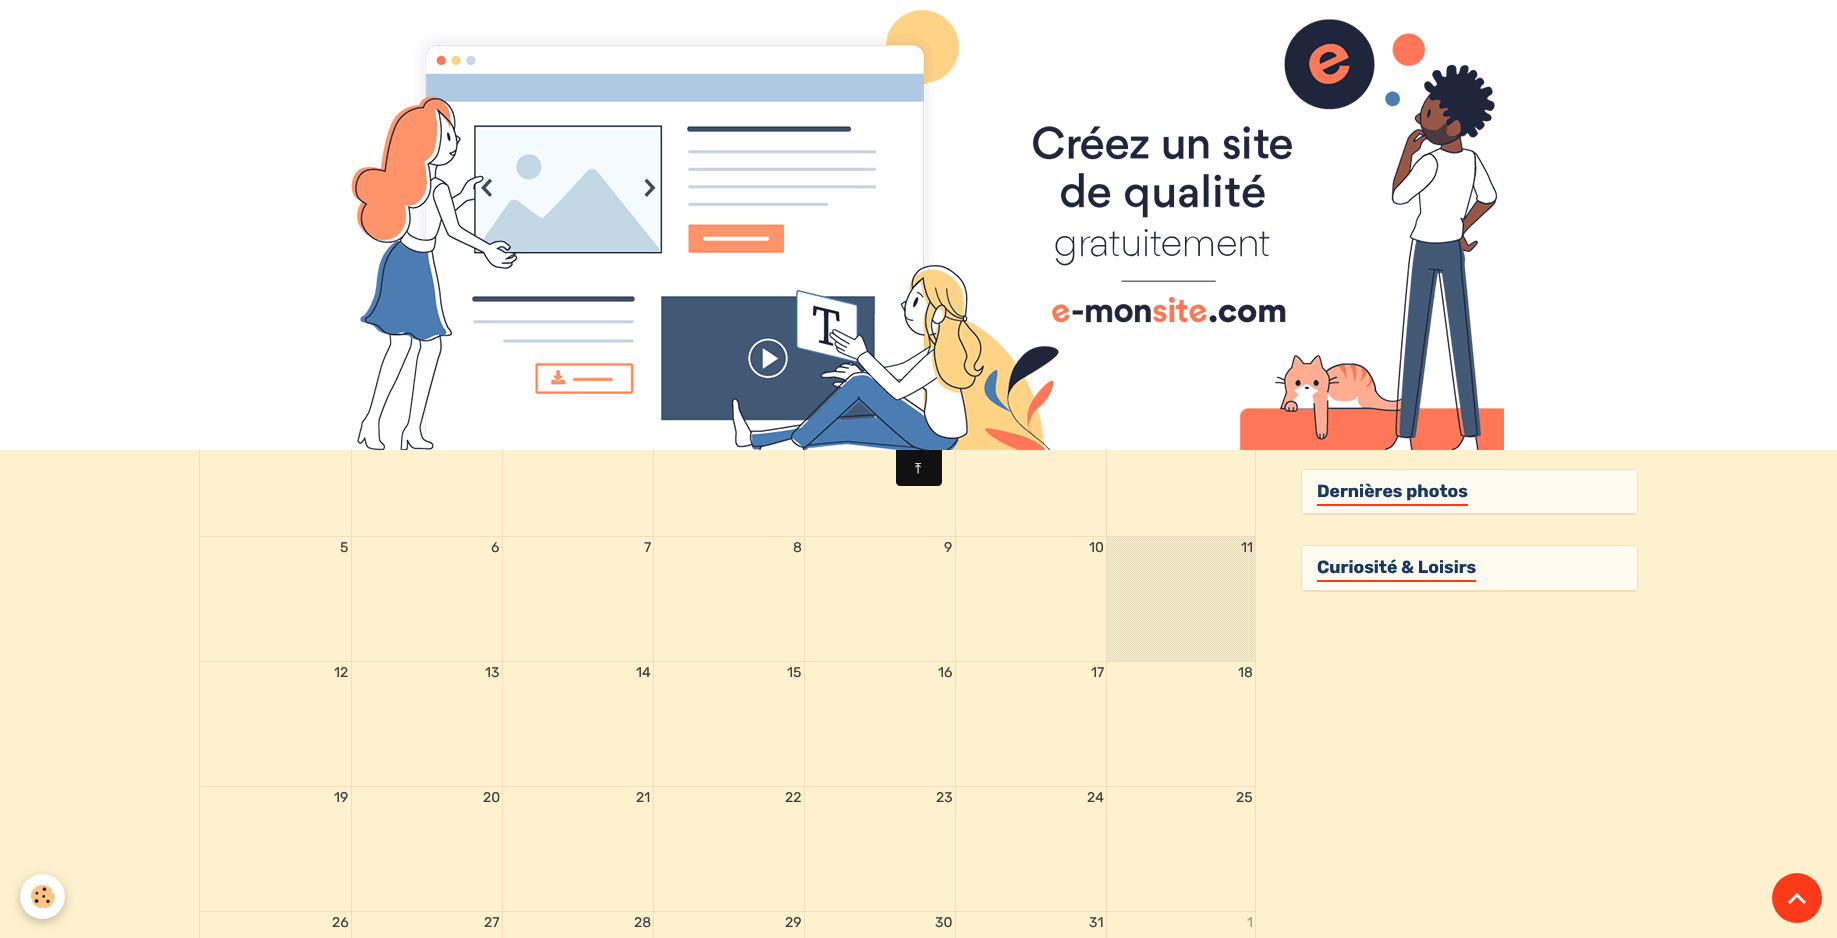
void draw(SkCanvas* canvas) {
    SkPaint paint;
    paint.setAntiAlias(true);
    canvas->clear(0xFFFEF1CD);
    paint.setStyle(SkPaint::kStroke_Style);
    paint.setStrokeWidth(1);
    paint.setColor(0xFFF4DCBE);
    canvas->drawRect(SkRect::MakeXYWH(199.5f, 379.5f, 1056, 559), paint);
    paint.setStyle(SkPaint::kFill_Style);
    paint.setColor(0xFFFFFFFF);
    canvas->drawRect(SkRect::MakeXYWH(0, 0, 1837, 450), paint);
    canvas->drawImageRect(SkImages::DeferredFromEncodedData(SkData::MakeFromFileName("img1.png")), SkRect::MakeXYWH(351, 10, 1153, 440), SkSamplingOptions());
    paint.setColor(0xFF111111);
    canvas->drawPath(SkPathBuilder().moveTo(896, 450).lineTo(942, 450).lineTo(942, 482).cubicTo(942, 484, 940, 486, 938, 486).lineTo(900, 486).cubicTo(898, 486, 896, 484, 896, 482).close().detach(), paint);
    SkFont font1(fontMgr->matchFamilyStyle("FreeSerif", SkFontStyle::Normal()), 14);
    font1.setSubpixel(true);
    paint.setColor(0xFFFFFFFF);
    canvas->drawString("⤒", 915, 473, font1, paint);
    paint.setColor(0x3D000000);
    paint.setMaskFilter(SkMaskFilter::MakeBlur(kNormal_SkBlurStyle, 5));
    canvas->drawRoundRect(SkRect::MakeXYWH(20, 877, 45, 45), 22.5f, 22.5f, paint);
    paint.setMaskFilter(nullptr);
    paint.setColor(0xFFFFFFFF);
    canvas->drawCircle(42.5f, 896.5f, 22.5f, paint);
    canvas->drawImageRect(SkImages::DeferredFromEncodedData(SkData::MakeFromFileName("img2.png")), SkRect::MakeXYWH(30, 884, 25, 25), SkSamplingOptions());
    paint.setStyle(SkPaint::kStroke_Style);
    paint.setColor(0xFFF4DCBE);
    canvas->drawRoundRect(SkRect::MakeXYWH(1301.5f, 469.5f, 336, 45), 3.5f, 3.5f, paint);
    paint.setStyle(SkPaint::kFill_Style);
    paint.setColor(0xFFFFFBF0);
    canvas->drawRoundRect(SkRect::MakeXYWH(1302, 470, 335, 44), 2.5f, 2.5f, paint);
    canvas->save();
    canvas->clipPath(SkPathBuilder().moveTo(1304.5f, 470).lineTo(1634.5f, 470).cubicTo(1636, 470, 1637, 471, 1637, 472.5f).lineTo(1637, 511.5f).cubicTo(1637, 513, 1636, 514, 1634.5f, 514).lineTo(1304.5f, 514).cubicTo(1303, 514, 1302, 513, 1302, 511.5f).lineTo(1302, 472.5f).cubicTo(1302, 471, 1303, 470, 1304.5f, 470).close().detach(), true);
    paint.setColor(0xFFF4DCBE);
    canvas->drawRect(SkRect::MakeXYWH(1302, 513, 335, 1), paint);
    canvas->restore();
    paint.setColor(0xFFFB3A19);
    canvas->drawRect(SkRect::MakeXYWH(1317, 504, 151, 2), paint);
    SkFont font2(fontMgr->matchFamilyStyle("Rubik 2", SkFontStyle(300, SkFontStyle::kNormal_Width, SkFontStyle::kUpright_Slant)), 17.5f);
    font2.setSubpixel(true);
    paint.setColor(0xFF173960);
    canvas->drawString("Dernières photos", 1317, 497, font2, paint);
    paint.setStyle(SkPaint::kStroke_Style);
    paint.setColor(0xFFF4DCBE);
    canvas->drawRoundRect(SkRect::MakeXYWH(1301.5f, 545.5f, 336, 46), 3.5f, 3.5f, paint);
    paint.setStyle(SkPaint::kFill_Style);
    paint.setColor(0xFFFFFBF0);
    canvas->drawRoundRect(SkRect::MakeXYWH(1302, 546, 335, 45), 2.5f, 2.5f, paint);
    canvas->save();
    canvas->clipPath(SkPathBuilder().moveTo(1304.5f, 546).lineTo(1634.5f, 546).cubicTo(1636, 546, 1637, 547, 1637, 548.5f).lineTo(1637, 588.5f).cubicTo(1637, 590, 1636, 591, 1634.5f, 591).lineTo(1304.5f, 591).cubicTo(1303, 591, 1302, 590, 1302, 588.5f).lineTo(1302, 548.5f).cubicTo(1302, 547, 1303, 546, 1304.5f, 546).close().detach(), true);
    paint.setColor(0xFFF4DCBE);
    canvas->drawRect(SkRect::MakeXYWH(1302, 590, 335, 1), paint);
    canvas->restore();
    paint.setColor(0xFFFB3A19);
    canvas->drawRect(SkRect::MakeXYWH(1317, 580, 159, 2), paint);
    paint.setColor(0xFF173960);
    canvas->drawString("Curiosité & Loisirs", 1317, 573, font2, paint);
    paint.setColor(0xFFF4DCBE);
    canvas->drawRect(SkRect::MakeXYWH(200, 536, 1055, 1), paint);
    canvas->drawRect(SkRect::MakeXYWH(351, 450, 1, 87), paint);
    canvas->drawRect(SkRect::MakeXYWH(502, 450, 1, 87), paint);
    canvas->drawRect(SkRect::MakeXYWH(653, 450, 1, 87), paint);
    canvas->drawRect(SkRect::MakeXYWH(804, 450, 1, 87), paint);
    canvas->drawRect(SkRect::MakeXYWH(955, 450, 1, 87), paint);
    canvas->drawRect(SkRect::MakeXYWH(1106, 450, 1, 87), paint);
    canvas->drawRect(SkRect::MakeXYWH(200, 661, 1055, 1), paint);
    SkFont font3(fontMgr->matchFamilyStyle("Rubik", SkFontStyle(300, SkFontStyle::kNormal_Width, SkFontStyle::kUpright_Slant)), 14);
    font3.setSubpixel(true);
    paint.setColor(0xFF3E3F40);
    canvas->drawString("5", 340, 552, font3, paint);
    paint.setColor(0xFFF4DCBE);
    canvas->drawRect(SkRect::MakeXYWH(351, 537, 1, 125), paint);
    paint.setColor(0xFF3E3F40);
    canvas->drawString("6", 491, 552, font3, paint);
    paint.setColor(0xFFF4DCBE);
    canvas->drawRect(SkRect::MakeXYWH(502, 537, 1, 125), paint);
    paint.setColor(0xFF3E3F40);
    canvas->drawString("7", 644, 552, font3, paint);
    paint.setColor(0xFFF4DCBE);
    canvas->drawRect(SkRect::MakeXYWH(653, 537, 1, 125), paint);
    paint.setColor(0xFF3E3F40);
    canvas->drawString("8", 793, 552, font3, paint);
    paint.setColor(0xFFF4DCBE);
    canvas->drawRect(SkRect::MakeXYWH(804, 537, 1, 125), paint);
    paint.setColor(0xFF3E3F40);
    canvas->drawString("9", 944, 552, font3, paint);
    paint.setColor(0xFFF4DCBE);
    canvas->drawRect(SkRect::MakeXYWH(955, 537, 1, 125), paint);
    paint.setColor(0xFF3E3F40);
    canvas->drawString("10", 1089, 552, font3, paint);
    canvas->drawImageRect(SkImages::DeferredFromEncodedData(SkData::MakeFromFileName("img3.png")), SkRect::MakeXYWH(1107, 537, 148, 124), SkSamplingOptions());
    paint.setColor(0xFFF4DCBE);
    canvas->drawRect(SkRect::MakeXYWH(1106, 537, 1, 125), paint);
    paint.setColor(0xFF3E3F40);
    canvas->drawString("11", 1241, 552, font3, paint);
    paint.setColor(0xFFF4DCBE);
    canvas->drawRect(SkRect::MakeXYWH(200, 786, 1055, 1), paint);
    paint.setColor(0xFF3E3F40);
    canvas->drawString("12", 334, 677, font3, paint);
    paint.setColor(0xFFF4DCBE);
    canvas->drawRect(SkRect::MakeXYWH(351, 662, 1, 125), paint);
    paint.setColor(0xFF3E3F40);
    canvas->drawString("13", 485, 677, font3, paint);
    paint.setColor(0xFFF4DCBE);
    canvas->drawRect(SkRect::MakeXYWH(502, 662, 1, 125), paint);
    paint.setColor(0xFF3E3F40);
    canvas->drawString("14", 636, 677, font3, paint);
    paint.setColor(0xFFF4DCBE);
    canvas->drawRect(SkRect::MakeXYWH(653, 662, 1, 125), paint);
    paint.setColor(0xFF3E3F40);
    canvas->drawString("15", 787, 677, font3, paint);
    paint.setColor(0xFFF4DCBE);
    canvas->drawRect(SkRect::MakeXYWH(804, 662, 1, 125), paint);
    paint.setColor(0xFF3E3F40);
    canvas->drawString("16", 938, 677, font3, paint);
    paint.setColor(0xFFF4DCBE);
    canvas->drawRect(SkRect::MakeXYWH(955, 662, 1, 125), paint);
    paint.setColor(0xFF3E3F40);
    canvas->drawString("17", 1091, 677, font3, paint);
    paint.setColor(0xFFF4DCBE);
    canvas->drawRect(SkRect::MakeXYWH(1106, 662, 1, 125), paint);
    paint.setColor(0xFF3E3F40);
    canvas->drawString("18", 1238, 677, font3, paint);
    paint.setColor(0xFFF4DCBE);
    canvas->drawRect(SkRect::MakeXYWH(200, 911, 1055, 1), paint);
    paint.setColor(0xFF3E3F40);
    canvas->drawString("19", 334, 802, font3, paint);
    paint.setColor(0xFFF4DCBE);
    canvas->drawRect(SkRect::MakeXYWH(351, 787, 1, 151), paint);
    paint.setColor(0xFF3E3F40);
    canvas->drawString("20", 483, 802, font3, paint);
    paint.setColor(0xFFF4DCBE);
    canvas->drawRect(SkRect::MakeXYWH(502, 787, 1, 151), paint);
    paint.setColor(0xFF3E3F40);
    canvas->drawString("21", 636, 802, font3, paint);
    paint.setColor(0xFFF4DCBE);
    canvas->drawRect(SkRect::MakeXYWH(653, 787, 1, 151), paint);
    paint.setColor(0xFF3E3F40);
    canvas->drawString("22", 785, 802, font3, paint);
    paint.setColor(0xFFF4DCBE);
    canvas->drawRect(SkRect::MakeXYWH(804, 787, 1, 151), paint);
    paint.setColor(0xFF3E3F40);
    canvas->drawString("23", 936, 802, font3, paint);
    paint.setColor(0xFFF4DCBE);
    canvas->drawRect(SkRect::MakeXYWH(955, 787, 1, 151), paint);
    paint.setColor(0xFF3E3F40);
    canvas->drawString("24", 1087, 802, font3, paint);
    paint.setColor(0xFFF4DCBE);
    canvas->drawRect(SkRect::MakeXYWH(1106, 787, 1, 151), paint);
    paint.setColor(0xFF3E3F40);
    canvas->drawString("25", 1236, 802, font3, paint);
    canvas->drawString("26", 332, 927, font3, paint);
    canvas->drawString("27", 484, 927, font3, paint);
    canvas->drawString("28", 634, 927, font3, paint);
    canvas->drawString("29", 785, 927, font3, paint);
    canvas->drawString("30", 935, 927, font3, paint);
    canvas->drawString("31", 1089, 927, font3, paint);
    paint.setColor(0xFF9E9887);
    canvas->drawString("1", 1247, 927, font3, paint);
    paint.setColor(0xFFFB3A19);
    canvas->drawCircle(1797, 898, 25, paint);
    paint.setColor(0xFFFFFFFF);
    canvas->drawPath(SkPathBuilder().moveTo(1797, 893).lineTo(1806, 902).lineTo(1804, 904).lineTo(1797, 897).lineTo(1790, 904).lineTo(1788, 902).close().detach(), paint);
}
